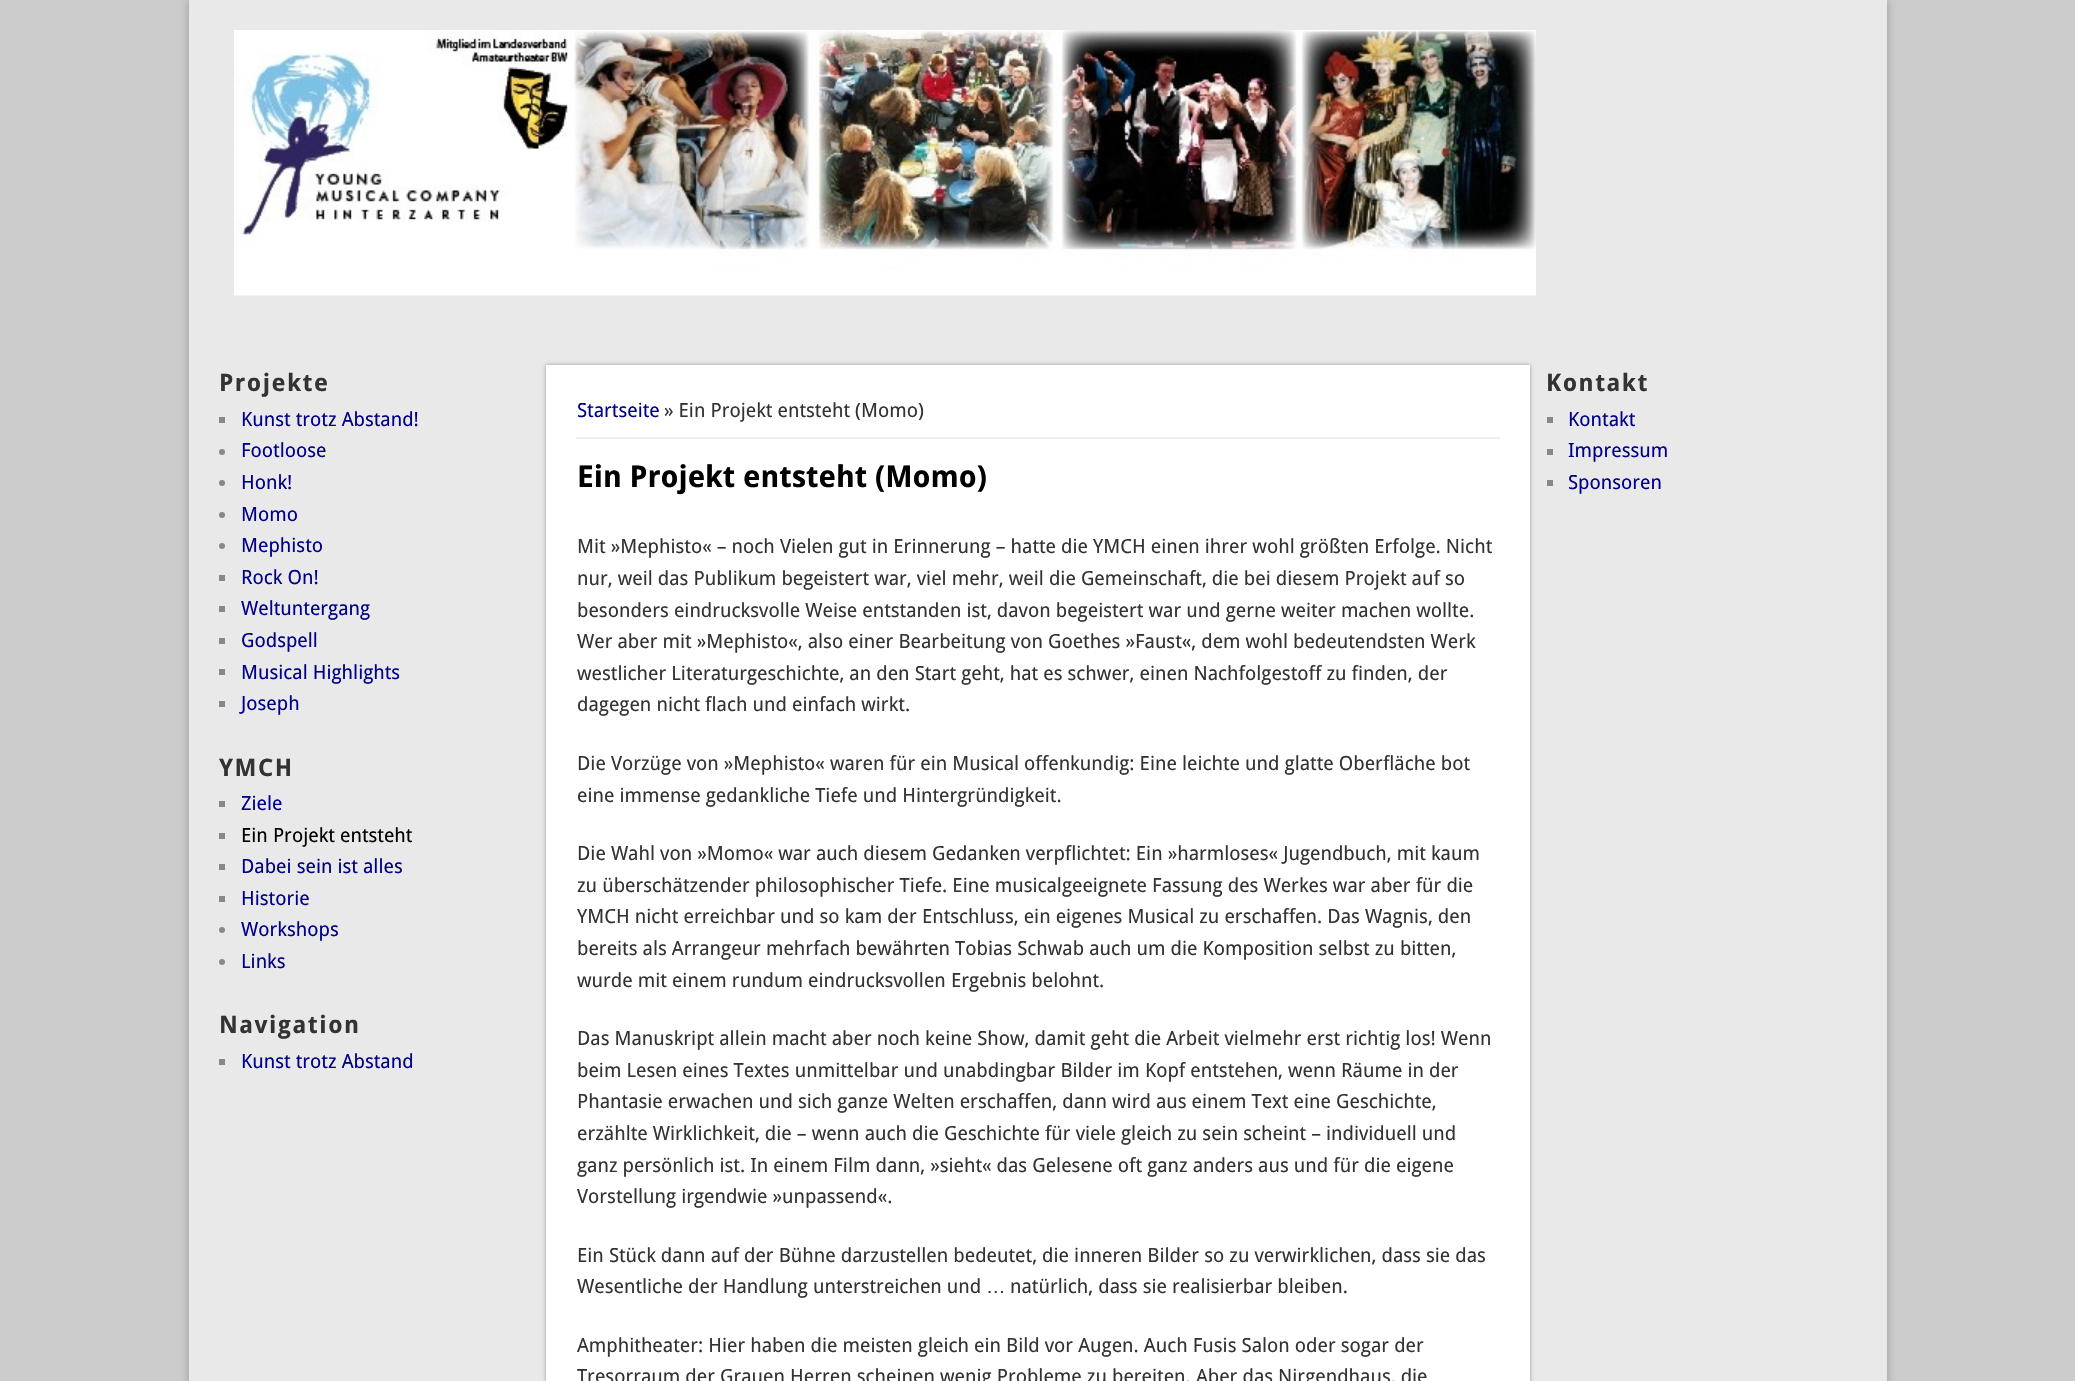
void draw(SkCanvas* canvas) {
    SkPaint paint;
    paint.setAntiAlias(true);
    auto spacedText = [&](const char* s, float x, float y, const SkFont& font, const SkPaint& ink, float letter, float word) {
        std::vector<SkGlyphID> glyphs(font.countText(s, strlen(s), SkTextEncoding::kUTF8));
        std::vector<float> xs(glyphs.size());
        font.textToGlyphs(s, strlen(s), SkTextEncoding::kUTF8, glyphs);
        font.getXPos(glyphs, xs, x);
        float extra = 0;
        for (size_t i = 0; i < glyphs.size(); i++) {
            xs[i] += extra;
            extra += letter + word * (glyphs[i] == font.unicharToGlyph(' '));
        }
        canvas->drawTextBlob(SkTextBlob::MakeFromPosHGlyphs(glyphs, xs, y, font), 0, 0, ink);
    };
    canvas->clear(0xFFCCCCCC);
    paint.setColor(0xFF999999);
    paint.setMaskFilter(SkMaskFilter::MakeBlur(kNormal_SkBlurStyle, 4.5f));
    canvas->drawRect(SkRect::MakeXYWH(189, 0, 1698, 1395), paint);
    paint.setMaskFilter(nullptr);
    paint.setColor(0xFFE9E9E9);
    canvas->drawRect(SkRect::MakeXYWH(189, 0, 1698, 1381), paint);
    canvas->drawImageRect(SkImages::DeferredFromEncodedData(SkData::MakeFromFileName("img1.png")), SkRect::MakeXYWH(234, 30, 1302, 266), SkSamplingOptions());
    SkFont font1(fontMgr->matchFamilyStyle("Droid Sans", SkFontStyle::Bold()), 24);
    font1.setSubpixel(true);
    paint.setColor(0xFF333333);
    spacedText("Projekte", 219, 391, font1, paint, 1.5f, 0);
    paint.setColor(0xFF888888);
    canvas->drawRect(SkRect::MakeXYWH(219, 417, 6, 6), paint);
    SkFont font2(fontMgr->matchFamilyStyle("Droid Sans", SkFontStyle::Normal()), 19.5f);
    font2.setSubpixel(true);
    paint.setColor(0xFF00008B);
    canvas->drawString("Kunst trotz Abstand!", 241, 426, font2, paint);
    paint.setColor(0xFF888888);
    canvas->drawCircle(222, 452, 3, paint);
    paint.setColor(0xFF00008B);
    canvas->drawString("Footloose", 241, 457, font2, paint);
    paint.setColor(0xFF888888);
    canvas->drawCircle(222, 483, 3, paint);
    paint.setColor(0xFF00008B);
    canvas->drawString("Honk!", 241, 489, font2, paint);
    paint.setColor(0xFF888888);
    canvas->drawCircle(222, 515, 3, paint);
    paint.setColor(0xFF00008B);
    canvas->drawString("Momo", 241, 521, font2, paint);
    paint.setColor(0xFF888888);
    canvas->drawCircle(222, 546, 3, paint);
    paint.setColor(0xFF00008B);
    canvas->drawString("Mephisto", 241, 552, font2, paint);
    paint.setColor(0xFF888888);
    canvas->drawRect(SkRect::MakeXYWH(219, 575, 6, 6), paint);
    paint.setColor(0xFF00008B);
    canvas->drawString("Rock On!", 241, 584, font2, paint);
    paint.setColor(0xFF888888);
    canvas->drawRect(SkRect::MakeXYWH(219, 606, 6, 6), paint);
    paint.setColor(0xFF00008B);
    canvas->drawString("Weltuntergang", 241, 615, font2, paint);
    paint.setColor(0xFF888888);
    canvas->drawRect(SkRect::MakeXYWH(219, 638, 6, 6), paint);
    paint.setColor(0xFF00008B);
    canvas->drawString("Godspell", 241, 647, font2, paint);
    paint.setColor(0xFF888888);
    canvas->drawRect(SkRect::MakeXYWH(219, 669, 6, 6), paint);
    paint.setColor(0xFF00008B);
    canvas->drawString("Musical Highlights", 241, 679, font2, paint);
    paint.setColor(0xFF888888);
    canvas->drawRect(SkRect::MakeXYWH(219, 701, 6, 6), paint);
    paint.setColor(0xFF00008B);
    canvas->drawString("Joseph", 241, 710, font2, paint);
    paint.setColor(0xFF333333);
    spacedText("YMCH", 219, 776, font1, paint, 1.5f, 0);
    paint.setColor(0xFF888888);
    canvas->drawRect(SkRect::MakeXYWH(219, 801, 6, 6), paint);
    paint.setColor(0xFF00008B);
    canvas->drawString("Ziele", 241, 810, font2, paint);
    paint.setColor(0xFF888888);
    canvas->drawRect(SkRect::MakeXYWH(219, 833, 6, 6), paint);
    paint.setColor(0xFF000000);
    canvas->drawString("Ein Projekt entsteht", 241, 842, font2, paint);
    paint.setColor(0xFF888888);
    canvas->drawRect(SkRect::MakeXYWH(219, 864, 6, 6), paint);
    paint.setColor(0xFF00008B);
    canvas->drawString("Dabei sein ist alles", 241, 873, font2, paint);
    paint.setColor(0xFF888888);
    canvas->drawRect(SkRect::MakeXYWH(219, 896, 6, 6), paint);
    paint.setColor(0xFF00008B);
    canvas->drawString("Historie", 241, 905, font2, paint);
    paint.setColor(0xFF888888);
    canvas->drawCircle(222, 930, 3, paint);
    paint.setColor(0xFF00008B);
    canvas->drawString("Workshops", 241, 936, font2, paint);
    paint.setColor(0xFF888888);
    canvas->drawCircle(222, 962, 3, paint);
    paint.setColor(0xFF00008B);
    canvas->drawString("Links", 241, 968, font2, paint);
    paint.setColor(0xFF333333);
    spacedText("Navigation", 219, 1033, font1, paint, 1.5f, 0);
    paint.setColor(0xFF888888);
    canvas->drawRect(SkRect::MakeXYWH(219, 1059, 6, 6), paint);
    paint.setColor(0xFF00008B);
    canvas->drawString("Kunst trotz Abstand", 241, 1068, font2, paint);
    paint.setColor(0xFF999999);
    paint.setMaskFilter(SkMaskFilter::MakeBlur(kNormal_SkBlurStyle, 2));
    canvas->drawRect(SkRect::MakeXYWH(546, 365, 984, 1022), paint);
    paint.setMaskFilter(nullptr);
    paint.setColor(0xFFFFFFFF);
    canvas->drawRect(SkRect::MakeXYWH(546, 365, 984, 1016), paint);
    paint.setColor(0xFFEEEEEE);
    canvas->drawRect(SkRect::MakeXYWH(576, 437, 924, 2), paint);
    paint.setColor(0xFF00008B);
    canvas->drawString("Startseite", 577, 417, font2, paint);
    paint.setColor(0xFF333333);
    canvas->drawString("» Ein Projekt entsteht (Momo)", 664, 417, font2, paint);
    SkFont font3(fontMgr->matchFamilyStyle("Droid Sans", SkFontStyle::Bold()), 30);
    font3.setSubpixel(true);
    paint.setColor(0xFF000000);
    canvas->drawString("Ein Projekt entsteht (Momo)", 577, 487, font3, paint);
    paint.setColor(0xFF333333);
    canvas->drawString("Mit »Mephisto« – noch Vielen gut in Erinnerung – hatte die YMCH einen ihrer wohl größten Erfolge. Nicht", 577, 553, font2, paint);
    canvas->drawString("nur, weil das Publikum begeistert war, viel mehr, weil die Gemeinschaft, die bei diesem Projekt auf so", 577, 585, font2, paint);
    canvas->drawString("besonders eindrucksvolle Weise entstanden ist, davon begeistert war und gerne weiter machen wollte.", 577, 617, font2, paint);
    canvas->drawString("Wer aber mit »Mephisto«, also einer Bearbeitung von Goethes »Faust«, dem wohl bedeutendsten Werk", 577, 648, font2, paint);
    canvas->drawString("westlicher Literaturgeschichte, an den Start geht, hat es schwer, einen Nachfolgestoff zu finden, der", 577, 680, font2, paint);
    canvas->drawString("dagegen nicht flach und einfach wirkt.", 577, 711, font2, paint);
    canvas->drawString("Die Vorzüge von »Mephisto« waren für ein Musical offenkundig: Eine leichte und glatte Oberfläche bot", 577, 770, font2, paint);
    canvas->drawString("eine immense gedankliche Tiefe und Hintergründigkeit.", 577, 802, font2, paint);
    canvas->drawString("Die Wahl von »Momo« war auch diesem Gedanken verpflichtet: Ein »harmloses« Jugendbuch, mit kaum", 577, 860, font2, paint);
    canvas->drawString("zu überschätzender philosophischer Tiefe. Eine musicalgeeignete Fassung des Werkes war aber für die", 577, 892, font2, paint);
    canvas->drawString("YMCH nicht erreichbar und so kam der Entschluss, ein eigenes Musical zu erschaffen. Das Wagnis, den", 577, 923, font2, paint);
    canvas->drawString("bereits als Arrangeur mehrfach bewährten Tobias Schwab auch um die Komposition selbst zu bitten,", 577, 955, font2, paint);
    canvas->drawString("wurde mit einem rundum eindrucksvollen Ergebnis belohnt.", 577, 987, font2, paint);
    canvas->drawString("Das Manuskript allein macht aber noch keine Show, damit geht die Arbeit vielmehr erst richtig los! Wenn", 577, 1045, font2, paint);
    canvas->drawString("beim Lesen eines Textes unmittelbar und unabdingbar Bilder im Kopf entstehen, wenn Räume in der", 577, 1077, font2, paint);
    canvas->drawString("Phantasie erwachen und sich ganze Welten erschaffen, dann wird aus einem Text eine Geschichte,", 577, 1108, font2, paint);
    canvas->drawString("erzählte Wirklichkeit, die – wenn auch die Geschichte für viele gleich zu sein scheint – individuell und", 577, 1140, font2, paint);
    canvas->drawString("ganz persönlich ist. In einem Film dann, »sieht« das Gelesene oft ganz anders aus und für die eigene", 577, 1172, font2, paint);
    canvas->drawString("Vorstellung irgendwie »unpassend«.", 577, 1203, font2, paint);
    canvas->drawString("Ein Stück dann auf der Bühne darzustellen bedeutet, die inneren Bilder so zu verwirklichen, dass sie das", 577, 1262, font2, paint);
    canvas->drawString("Wesentliche der Handlung unterstreichen und", 577, 1293, font2, paint);
    SkFont font4(fontMgr->matchFamilyStyle("Liberation Sans", SkFontStyle::Normal()), 19.5f);
    font4.setSubpixel(true);
    canvas->drawString("…", 986, 1293, font4, paint);
    canvas->drawString("natürlich, dass sie realisierbar bleiben.", 1010, 1293, font2, paint);
    canvas->drawString("Amphitheater: Hier haben die meisten gleich ein Bild vor Augen. Auch Fusis Salon oder sogar der", 577, 1352, font2, paint);
    canvas->drawString("Tresorraum der Grauen Herren scheinen wenig Probleme zu bereiten. Aber das Nirgendhaus, die", 577, 1383, font2, paint);
    spacedText("Kontakt", 1546, 391, font1, paint, 1.5f, 0);
    paint.setColor(0xFF888888);
    canvas->drawRect(SkRect::MakeXYWH(1547, 417, 6, 6), paint);
    paint.setColor(0xFF00008B);
    canvas->drawString("Kontakt", 1568, 426, font2, paint);
    paint.setColor(0xFF888888);
    canvas->drawRect(SkRect::MakeXYWH(1547, 449, 6, 6), paint);
    paint.setColor(0xFF00008B);
    canvas->drawString("Impressum", 1568, 457, font2, paint);
    paint.setColor(0xFF888888);
    canvas->drawRect(SkRect::MakeXYWH(1547, 480, 6, 6), paint);
    paint.setColor(0xFF00008B);
    canvas->drawString("Sponsoren", 1568, 489, font2, paint);
}
